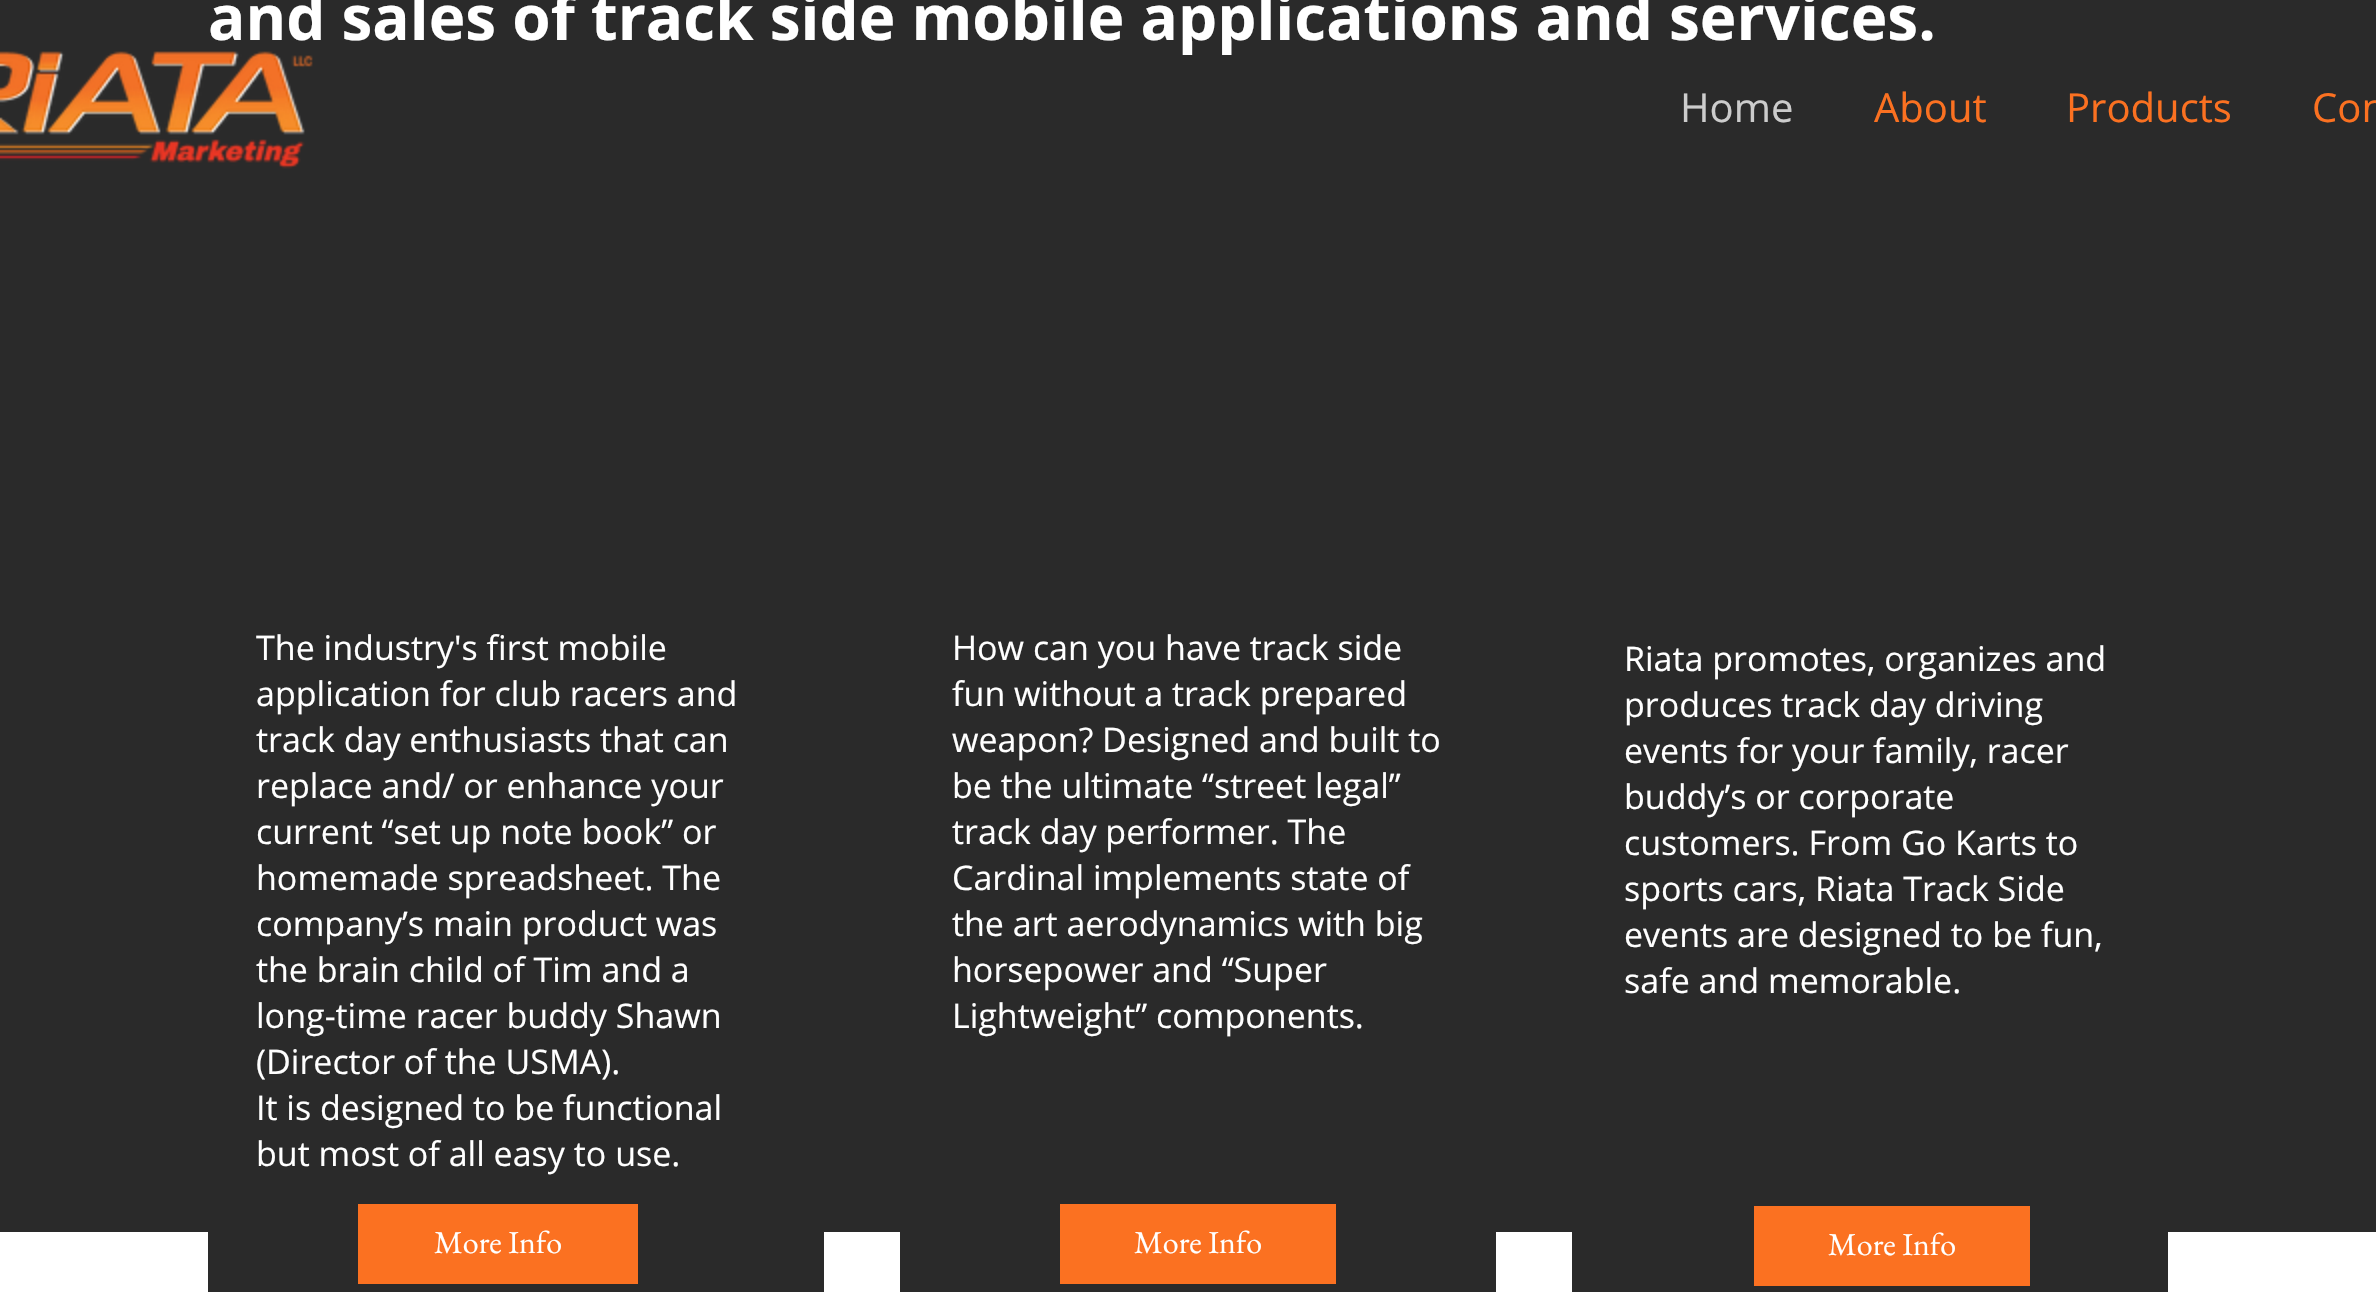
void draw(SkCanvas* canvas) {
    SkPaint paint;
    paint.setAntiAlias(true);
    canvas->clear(0xFFFFFFFF);
    paint.setColor(0xFF2A2A2A);
    canvas->drawRect(SkRect::MakeXYWH(0, 0, 2376, 1232), paint);
    SkFont font1(fontMgr->matchFamilyStyle("Open Sans", SkFontStyle::Bold()), 62);
    font1.setSubpixel(true);
    paint.setColor(0xFFFFFFFF);
    canvas->drawString("and sales of track side mobile applications and services.", 208, 40, font1, paint);
    SkFont font2(fontMgr->matchFamilyStyle("Open Sans", SkFontStyle::Normal()), 34);
    font2.setSubpixel(true);
    canvas->drawString("The industry's first mobile", 256, 660, font2, paint);
    canvas->drawString("application for club racers and", 256, 706, font2, paint);
    canvas->drawString("track day enthusiasts that can", 256, 752, font2, paint);
    canvas->drawString("replace and/ or enhance your", 256, 798, font2, paint);
    canvas->drawString("current “set up note book” or", 256, 844, font2, paint);
    canvas->drawString("homemade spreadsheet. The", 256, 890, font2, paint);
    canvas->drawString("company’s main product was", 256, 936, font2, paint);
    canvas->drawString("the brain child of Tim and a", 256, 982, font2, paint);
    canvas->drawString("long-time racer buddy Shawn", 256, 1028, font2, paint);
    canvas->drawString("(Director of the USMA).", 256, 1074, font2, paint);
    canvas->drawString("It is designed to be functional", 256, 1120, font2, paint);
    canvas->drawString("but most of all easy to use.", 256, 1166, font2, paint);
    paint.setColor(0xFF2A2A2A);
    canvas->drawRect(SkRect::MakeXYWH(208, 1232, 616, 60), paint);
    paint.setColor(0xFFFB7121);
    canvas->drawRect(SkRect::MakeXYWH(358, 1204, 280, 80), paint);
    SkFont font3(fontMgr->matchFamilyStyle("EB Garamond", SkFontStyle::Normal()), 32);
    font3.setSubpixel(true);
    paint.setColor(0xFFFFFFFF);
    canvas->drawString("More Info", 434, 1253, font3, paint);
    canvas->drawString("How can you have track side", 952, 660, font2, paint);
    canvas->drawString("fun without a track prepared", 952, 706, font2, paint);
    canvas->drawString("weapon? Designed and built to", 952, 752, font2, paint);
    canvas->drawString("be the ultimate “street legal”", 952, 798, font2, paint);
    canvas->drawString("track day performer. The", 952, 844, font2, paint);
    canvas->drawString("Cardinal implements state of", 952, 890, font2, paint);
    canvas->drawString("the art aerodynamics with big", 952, 936, font2, paint);
    canvas->drawString("horsepower and “Super", 952, 982, font2, paint);
    canvas->drawString("Lightweight” components.", 952, 1028, font2, paint);
    paint.setColor(0xFF2A2A2A);
    canvas->drawRect(SkRect::MakeXYWH(900, 1232, 596, 60), paint);
    paint.setColor(0xFFFB7121);
    canvas->drawRect(SkRect::MakeXYWH(1060, 1204, 276, 80), paint);
    paint.setColor(0xFFFFFFFF);
    canvas->drawString("More Info", 1134, 1253, font3, paint);
    canvas->drawString("Riata promotes, organizes and", 1624, 671, font2, paint);
    canvas->drawString("produces track day driving", 1624, 717, font2, paint);
    canvas->drawString("events for your family, racer", 1624, 763, font2, paint);
    canvas->drawString("buddy’s or corporate", 1624, 809, font2, paint);
    canvas->drawString("customers. From Go Karts to", 1624, 855, font2, paint);
    canvas->drawString("sports cars, Riata Track Side", 1624, 901, font2, paint);
    canvas->drawString("events are designed to be fun,", 1624, 947, font2, paint);
    canvas->drawString("safe and memorable.", 1624, 993, font2, paint);
    paint.setColor(0xFF2A2A2A);
    canvas->drawRect(SkRect::MakeXYWH(1572, 1232, 596, 60), paint);
    paint.setColor(0xFFFB7121);
    canvas->drawRect(SkRect::MakeXYWH(1754, 1206, 276, 80), paint);
    paint.setColor(0xFFFFFFFF);
    canvas->drawString("More Info", 1828, 1255, font3, paint);
    canvas->drawImageRect(SkImages::DeferredFromEncodedData(SkData::MakeFromFileName("img1.png")), SkRect::MakeXYWH(0, 51, 313, 118), SkSamplingOptions());
    SkFont font4(fontMgr->matchFamilyStyle("Open Sans", SkFontStyle::Normal()), 40);
    font4.setSubpixel(true);
    paint.setColor(0xFFCCCCCC);
    canvas->drawString("Home", 1680, 122, font4, paint);
    paint.setColor(0xFFFB7121);
    canvas->drawString("About", 1874, 122, font4, paint);
    canvas->drawString("Products", 2066, 122, font4, paint);
    canvas->drawString("Con", 2312, 122, font4, paint);
}
